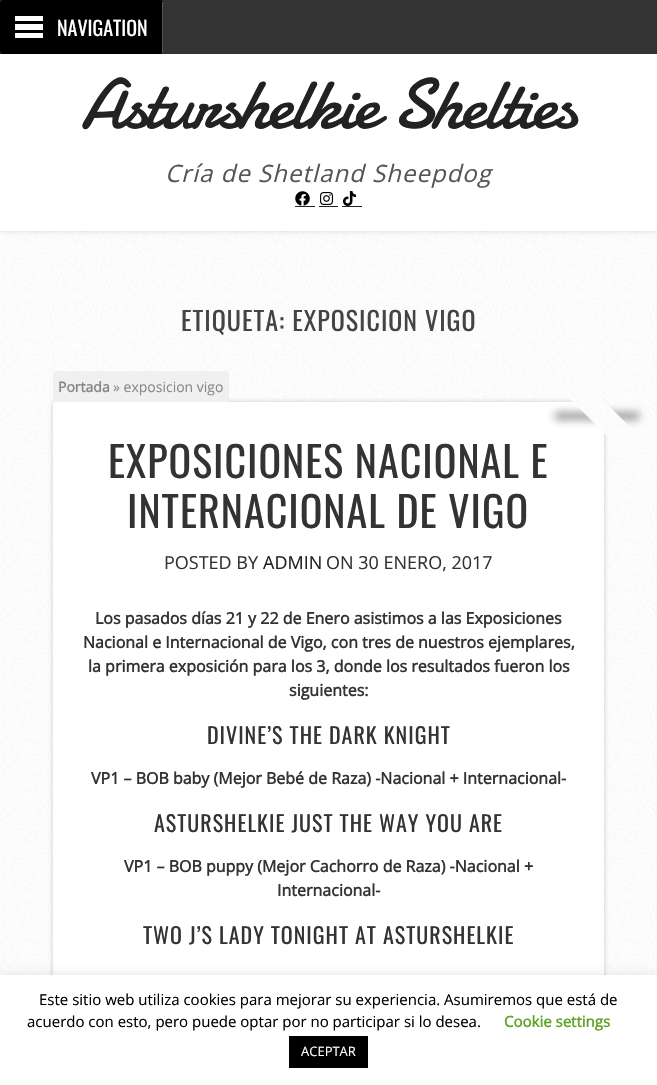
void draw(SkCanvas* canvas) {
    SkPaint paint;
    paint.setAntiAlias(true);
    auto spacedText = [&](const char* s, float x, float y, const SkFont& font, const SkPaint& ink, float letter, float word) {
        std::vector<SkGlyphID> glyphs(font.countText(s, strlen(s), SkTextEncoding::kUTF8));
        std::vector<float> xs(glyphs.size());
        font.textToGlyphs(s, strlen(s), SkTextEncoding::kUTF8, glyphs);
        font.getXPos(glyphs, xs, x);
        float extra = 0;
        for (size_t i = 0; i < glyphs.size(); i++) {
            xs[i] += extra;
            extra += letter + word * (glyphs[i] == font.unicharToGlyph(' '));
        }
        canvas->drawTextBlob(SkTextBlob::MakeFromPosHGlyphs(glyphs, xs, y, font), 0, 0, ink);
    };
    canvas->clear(0xFFFFFFFF);
    canvas->drawImageRect(SkImages::DeferredFromEncodedData(SkData::MakeFromFileName("img1.png")), SkRect::MakeXYWH(0, 231, 657, 744), SkSamplingOptions());
    paint.setColor(0x26000000);
    paint.setMaskFilter(SkMaskFilter::MakeBlur(kNormal_SkBlurStyle, 2.5f));
    canvas->drawRect(SkRect::MakeXYWH(0, -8, 657, 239), paint);
    paint.setMaskFilter(nullptr);
    paint.setColor(0xFF333333);
    canvas->drawRect(SkRect::MakeXYWH(0, 0, 657, 54), paint);
    paint.setColor(0xFF000000);
    canvas->drawRoundRect(SkRect::MakeXYWH(0, 0, 163, 54), 3, 3, paint);
    paint.setColor(0xFF555555);
    canvas->drawRect(SkRect::MakeXYWH(162, 2, 1, 51), paint);
    paint.setColor(0xFFFFFFFF);
    canvas->drawRect(SkRect::MakeXYWH(15, 16, 28, 5), paint);
    canvas->drawRect(SkRect::MakeXYWH(15, 24, 28, 6), paint);
    canvas->drawRect(SkRect::MakeXYWH(15, 33, 28, 5), paint);
    SkFont font1(fontMgr->matchFamilyStyle("Oswald", SkFontStyle::Normal()), 20);
    font1.setSubpixel(true);
    canvas->drawString("NAVIGATION", 57, 36, font1, paint);
    canvas->drawRect(SkRect::MakeXYWH(0, 54, 657, 177), paint);
    SkFont font2(fontMgr->matchFamilyStyle("Damion", SkFontStyle::Normal()), 72);
    font2.setSubpixel(true);
    paint.setColor(0xFF222222);
    spacedText("Asturshelkie Shelties", 81, 128, font2, paint, -2, 0);
    SkFont font3(fontMgr->matchFamilyStyle("Open Sans", SkFontStyle::Italic()), 24);
    font3.setSubpixel(true);
    paint.setColor(0xFF555555);
    spacedText("Cría de Shetland Sheepdog", 165, 182, font3, paint, 1, 0);
    paint.setColor(0xFF222222);
    canvas->drawRect(SkRect::MakeXYWH(295, 206, 20, 1), paint);
    canvas->drawImageRect(SkImages::DeferredFromEncodedData(SkData::MakeFromFileName("img2.png")), SkRect::MakeXYWH(295, 191, 15, 15), SkSamplingOptions());
    canvas->drawRect(SkRect::MakeXYWH(319, 206, 19, 1), paint);
    canvas->drawImageRect(SkImages::DeferredFromEncodedData(SkData::MakeFromFileName("img3.png")), SkRect::MakeXYWH(320, 192, 14, 13), SkSamplingOptions());
    canvas->drawRect(SkRect::MakeXYWH(342, 206, 20, 1), paint);
    canvas->drawImageRect(SkImages::DeferredFromEncodedData(SkData::MakeFromFileName("img4.png")), SkRect::MakeXYWH(343, 191, 14, 15), SkSamplingOptions());
    SkFont font4(fontMgr->matchFamilyStyle("Oswald", SkFontStyle::Normal()), 26);
    font4.setSubpixel(true);
    paint.setColor(0xFF444444);
    spacedText("ETIQUETA: EXPOSICION VIGO", 181, 331, font4, paint, 1, 0);
    paint.setColor(0x33000000);
    paint.setMaskFilter(SkMaskFilter::MakeBlur(kNormal_SkBlurStyle, 2.5f));
    canvas->drawRoundRect(SkRect::MakeXYWH(53, 402, 551, 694), 3, 3, paint);
    paint.setMaskFilter(nullptr);
    paint.setColor(0xFFF0F0F0);
    canvas->drawPath(SkPathBuilder().moveTo(56, 371).lineTo(226, 371).cubicTo(227.5f, 371, 229, 372.5f, 229, 374).lineTo(229, 402).lineTo(53, 402).lineTo(53, 374).cubicTo(53, 372.5f, 54.5f, 371, 56, 371).close().detach(), paint);
    SkFont font5(fontMgr->matchFamilyStyle("Open Sans", SkFontStyle::Bold()), 14);
    font5.setSubpixel(true);
    paint.setColor(0xFF888888);
    canvas->drawString("Portada", 58, 392, font5, paint);
    SkFont font6(fontMgr->matchFamilyStyle("Open Sans", SkFontStyle::Normal()), 14);
    font6.setSubpixel(true);
    canvas->drawString("» exposicion vigo", 113, 392, font6, paint);
    paint.setColor(0xFFFFFFFF);
    canvas->drawRoundRect(SkRect::MakeXYWH(53, 402, 551, 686), 3, 3, paint);
    paint.setColor(0x80000000);
    paint.setMaskFilter(SkMaskFilter::MakeBlur(kNormal_SkBlurStyle, 4.5f));
    canvas->drawRect(SkRect::MakeXYWH(555, 413, 84, 6), paint);
    paint.setMaskFilter(nullptr);
    paint.setColor(0xFFFFFFFF);
    canvas->drawPath(SkPathBuilder().moveTo(570, 367).lineTo(641, 438).lineTo(625, 454).lineTo(554, 383).close().detach(), paint);
    canvas->drawImageRect(SkImages::DeferredFromEncodedData(SkData::MakeFromFileName("img5.png")), SkRect::MakeXYWH(555, 368, 85, 83), SkSamplingOptions());
    SkFont font7(fontMgr->matchFamilyStyle("Oswald", SkFontStyle::Normal()), 42);
    font7.setSubpixel(true);
    paint.setColor(0xFF333333);
    spacedText("EXPOSICIONES NACIONAL E", 108, 478, font7, paint, 1, 0);
    spacedText("INTERNACIONAL DE VIGO", 127, 528, font7, paint, 1, 0);
    SkFont font8(fontMgr->matchFamilyStyle("Open Sans", SkFontStyle::Normal()), 18);
    font8.setSubpixel(true);
    canvas->drawString("POSTED BY", 164, 569, font8, paint);
    paint.setColor(0xFF222222);
    canvas->drawString("ADMIN", 263, 569, font8, paint);
    paint.setColor(0xFF333333);
    canvas->drawString("ON 30 ENERO, 2017", 326, 569, font8, paint);
    SkFont font9(fontMgr->matchFamilyStyle("Open Sans", SkFontStyle::Bold()), 16);
    font9.setSubpixel(true);
    canvas->drawString("Los pasados días 21 y 22 de Enero asistimos a las Exposiciones", 95, 624, font9, paint);
    canvas->drawString("Nacional e Internacional de Vigo, con tres de nuestros ejemplares,", 83, 648, font9, paint);
    canvas->drawString("la primera exposición para los 3, donde los resultados fueron los", 88, 672, font9, paint);
    canvas->drawString("siguientes:", 289, 696, font9, paint);
    SkFont font10(fontMgr->matchFamilyStyle("Oswald", SkFontStyle::Normal()), 22);
    font10.setSubpixel(true);
    spacedText("DIVINE’S THE DARK KNIGHT", 207, 744, font10, paint, 1, 0);
    canvas->drawString("VP1 – BOB baby (Mejor Bebé de Raza) -Nacional + Internacional-", 91, 784, font9, paint);
    spacedText("ASTURSHELKIE JUST THE WAY YOU ARE", 154, 832, font10, paint, 1, 0);
    canvas->drawString("VP1 – BOB puppy (Mejor Cachorro de Raza) -Nacional +", 124, 872, font9, paint);
    canvas->drawString("Internacional-", 277, 896, font9, paint);
    spacedText("TWO J’S LADY TONIGHT AT ASTURSHELKIE", 143, 944, font10, paint, 1, 0);
    paint.setColor(0x4DACABAB);
    paint.setMaskFilter(SkMaskFilter::MakeBlur(kNormal_SkBlurStyle, 5));
    canvas->drawRect(SkRect::MakeXYWH(0, 974, 657, 110), paint);
    paint.setMaskFilter(nullptr);
    paint.setColor(0xFFFFFFFF);
    canvas->drawRect(SkRect::MakeXYWH(0, 975, 657, 110), paint);
    SkFont font11(fontMgr->matchFamilyStyle("Open Sans", SkFontStyle::Normal()), 15);
    font11.setSubpixel(true);
    paint.setColor(0xFF000000);
    canvas->drawString("Este sitio web utiliza cookies para mejorar su experiencia. Asumiremos que está de", 39, 1005, font11, paint);
    canvas->drawString("acuerdo con esto, pero puede optar por no participar si lo desea.", 27, 1027, font11, paint);
    SkFont font12(fontMgr->matchFamilyStyle("Open Sans", SkFontStyle::Bold()), 15);
    font12.setSubpixel(true);
    paint.setColor(0xFF62A329);
    canvas->drawString("Cookie settings", 504, 1027, font12, paint);
    paint.setColor(0xFF000000);
    canvas->drawRect(SkRect::MakeXYWH(289, 1036, 79, 32), paint);
    SkFont font13(fontMgr->matchFamilyStyle("Open Sans", SkFontStyle::Normal()), 13);
    font13.setSubpixel(true);
    paint.setColor(0xFFFFFFFF);
    canvas->drawString("ACEPTAR", 301, 1056, font13, paint);
}
